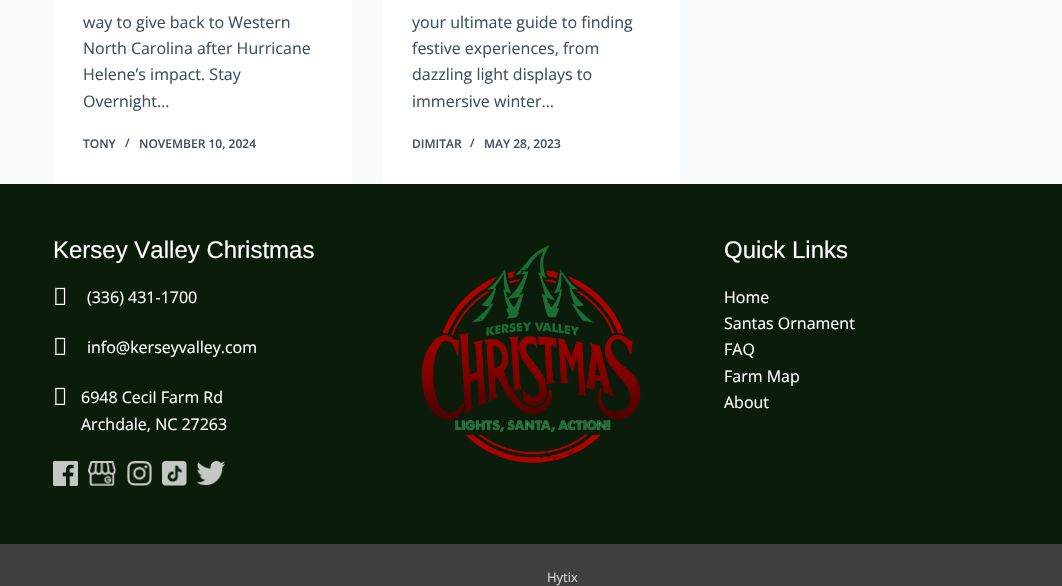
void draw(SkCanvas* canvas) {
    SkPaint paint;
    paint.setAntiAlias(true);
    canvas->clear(0xFFFAFBFC);
    paint.setColor(0xFFFFFFFF);
    canvas->drawRect(SkRect::MakeXYWH(53, 0, 299, 184), paint);
    SkFont font1(fontMgr->matchFamilyStyle("Open Sans", SkFontStyle::Normal()), 16);
    font1.setSubpixel(true);
    paint.setColor(0xFF3A4F66);
    canvas->drawString("way to give back to Western", 83, 28, font1, paint);
    canvas->drawString("North Carolina after Hurricane", 83, 54, font1, paint);
    canvas->drawString("Helene’s impact. Stay", 83, 80, font1, paint);
    canvas->drawString("Overnight…", 83, 107, font1, paint);
    SkFont font2(fontMgr->matchFamilyStyle("Open Sans", SkFontStyle(600, SkFontStyle::kNormal_Width, SkFontStyle::kUpright_Slant)), 12);
    font2.setSubpixel(true);
    canvas->drawString("TONY", 83, 148, font2, paint);
    canvas->drawString("/", 125, 147, font2, paint);
    canvas->drawString("NOVEMBER 10, 2024", 139, 148, font2, paint);
    paint.setColor(0xFFFFFFFF);
    canvas->drawRect(SkRect::MakeXYWH(382, 0, 298, 184), paint);
    paint.setColor(0xFF3A4F66);
    canvas->drawString("your ultimate guide to finding", 412, 28, font1, paint);
    canvas->drawString("festive experiences, from", 412, 54, font1, paint);
    canvas->drawString("dazzling light displays to", 412, 80, font1, paint);
    canvas->drawString("immersive winter…", 412, 107, font1, paint);
    canvas->drawString("DIMITAR", 412, 148, font2, paint);
    canvas->drawString("/", 470, 147, font2, paint);
    canvas->drawString("MAY 28, 2023", 484, 148, font2, paint);
    paint.setColor(0xFF0B1C0A);
    canvas->drawRect(SkRect::MakeXYWH(0, 184, 1062, 360), paint);
    SkFont font3(fontMgr->matchFamilyStyle("Liberation Sans", SkFontStyle::Normal()), 24);
    font3.setSubpixel(true);
    paint.setColor(0xFFFFFFFF);
    canvas->drawString("Kersey Valley Christmas", 53, 258, font3, paint);
    canvas->drawImageRect(SkImages::DeferredFromEncodedData(SkData::MakeFromFileName("img1.png")), SkRect::MakeXYWH(55, 287, 11, 18), SkSamplingOptions());
    canvas->drawString("(336) 431-1700", 87, 303, font1, paint);
    canvas->drawImageRect(SkImages::DeferredFromEncodedData(SkData::MakeFromFileName("img1.png")), SkRect::MakeXYWH(55, 337, 11, 18), SkSamplingOptions());
    canvas->drawString("info@kerseyvalley.com", 87, 353, font1, paint);
    canvas->drawImageRect(SkImages::DeferredFromEncodedData(SkData::MakeFromFileName("img1.png")), SkRect::MakeXYWH(55, 387, 11, 18), SkSamplingOptions());
    canvas->drawString("6948 Cecil Farm Rd", 81, 403, font1, paint);
    canvas->drawString("Archdale, NC 27263", 81, 430, font1, paint);
    canvas->drawImageRect(SkImages::DeferredFromEncodedData(SkData::MakeFromFileName("img2.png")), SkRect::MakeXYWH(53, 461, 25, 25), SkSamplingOptions());
    canvas->drawImageRect(SkImages::DeferredFromEncodedData(SkData::MakeFromFileName("img3.png")), SkRect::MakeXYWH(88, 461, 28, 25), SkSamplingOptions());
    canvas->drawImageRect(SkImages::DeferredFromEncodedData(SkData::MakeFromFileName("img4.png")), SkRect::MakeXYWH(127, 461, 25, 25), SkSamplingOptions());
    canvas->drawImageRect(SkImages::DeferredFromEncodedData(SkData::MakeFromFileName("img5.png")), SkRect::MakeXYWH(162, 461, 25, 25), SkSamplingOptions());
    canvas->drawImageRect(SkImages::DeferredFromEncodedData(SkData::MakeFromFileName("img6.png")), SkRect::MakeXYWH(197, 461, 28, 25), SkSamplingOptions());
    canvas->drawImageRect(SkImages::DeferredFromEncodedData(SkData::MakeFromFileName("img7.png")), SkRect::MakeXYWH(421, 245, 220, 218), SkSamplingOptions());
    canvas->drawString("Quick Links", 724, 258, font3, paint);
    canvas->drawString("Home", 724, 303, font1, paint);
    canvas->drawString("Santas Ornament", 724, 329, font1, paint);
    canvas->drawString("FAQ", 724, 355, font1, paint);
    canvas->drawString("Farm Map", 724, 382, font1, paint);
    canvas->drawString("About", 724, 408, font1, paint);
    paint.setColor(0xFF404040);
    canvas->drawRect(SkRect::MakeXYWH(0, 544, 1062, 42), paint);
    SkFont font4(fontMgr->matchFamilyStyle("Open Sans", SkFontStyle::Normal()), 13);
    font4.setSubpixel(true);
    paint.setColor(0xFFD7D7D7);
    canvas->drawString("Hytix", 547, 582, font4, paint);
}
